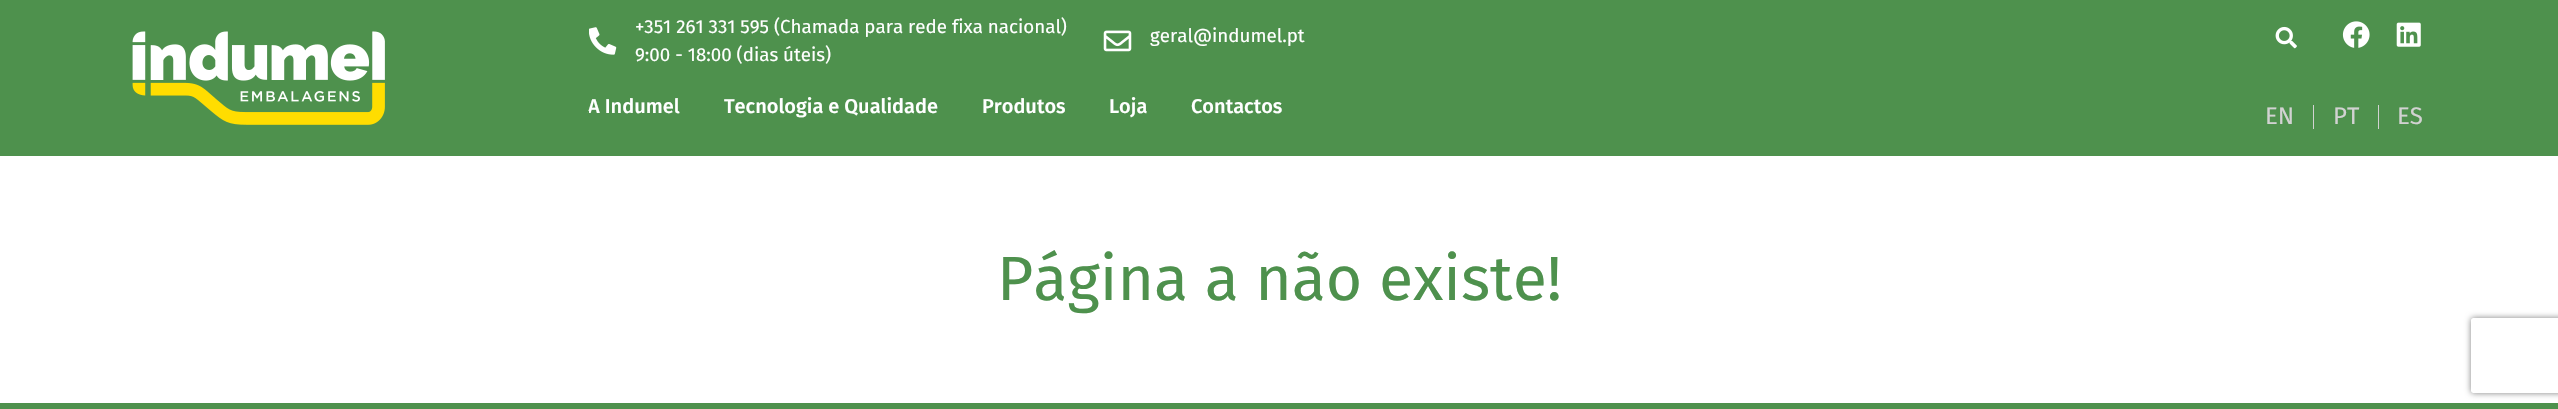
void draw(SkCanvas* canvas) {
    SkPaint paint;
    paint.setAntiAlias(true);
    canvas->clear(0xFFFFFFFF);
    paint.setColor(0xFF4E914D);
    canvas->drawRect(SkRect::MakeXYWH(0, 0, 2558, 156), paint);
    SkFont font1(fontMgr->matchFamilyStyle("Fira Sans", SkFontStyle(500, SkFontStyle::kNormal_Width, SkFontStyle::kUpright_Slant)), 20);
    font1.setSubpixel(true);
    paint.setColor(0xFFFFFFFF);
    canvas->drawString("A Indumel", 588, 113, font1, paint);
    paint.setColor(0xFF4E914D);
    canvas->drawRect(SkRect::MakeXYWH(588, 111, 1, 2), paint);
    canvas->drawImageRect(SkImages::DeferredFromEncodedData(SkData::MakeFromFileName("img1.png")), SkRect::MakeXYWH(132, 31, 253, 94), SkSamplingOptions());
    canvas->drawImageRect(SkImages::DeferredFromEncodedData(SkData::MakeFromFileName("img2.png")), SkRect::MakeXYWH(589, 27, 28, 28), SkSamplingOptions());
    SkFont font2(fontMgr->matchFamilyStyle("Fira Sans", SkFontStyle::Normal()), 18.75f);
    font2.setSubpixel(true);
    paint.setColor(0xFFFFFFFF);
    canvas->drawString("+351 261 331 595 (Chamada para rede fixa nacional)", 635, 33, font2, paint);
    canvas->drawString("9:00 - 18:00 (dias úteis)", 635, 61, font2, paint);
    canvas->drawImageRect(SkImages::DeferredFromEncodedData(SkData::MakeFromFileName("img3.png")), SkRect::MakeXYWH(1103, 30, 29, 22), SkSamplingOptions());
    canvas->drawString("geral@indumel.pt", 1150, 42, font2, paint);
    canvas->drawString("Tecnologia e Qualidade", 724, 113, font1, paint);
    canvas->drawString("Produtos", 982, 113, font1, paint);
    canvas->drawString("Loja", 1109, 113, font1, paint);
    canvas->drawString("Contactos", 1191, 113, font1, paint);
    canvas->drawImageRect(SkImages::DeferredFromEncodedData(SkData::MakeFromFileName("img4.png")), SkRect::MakeXYWH(2275, 26, 22, 23), SkSamplingOptions());
    canvas->drawImageRect(SkImages::DeferredFromEncodedData(SkData::MakeFromFileName("img5.png")), SkRect::MakeXYWH(2342, 21, 28, 27), SkSamplingOptions());
    canvas->drawImageRect(SkImages::DeferredFromEncodedData(SkData::MakeFromFileName("img6.png")), SkRect::MakeXYWH(2396, 22, 25, 25), SkSamplingOptions());
    SkFont font3(fontMgr->matchFamilyStyle("Fira Sans", SkFontStyle::Normal()), 24);
    font3.setSubpixel(true);
    paint.setColor(0xFFD2D2D2);
    canvas->drawString("EN", 2265, 124, font3, paint);
    canvas->drawRect(SkRect::MakeXYWH(2313, 105, 1, 24), paint);
    canvas->drawString("PT", 2333, 124, font3, paint);
    canvas->drawRect(SkRect::MakeXYWH(2378, 105, 1, 24), paint);
    canvas->drawString("ES", 2397, 124, font3, paint);
    SkFont font4(fontMgr->matchFamilyStyle("Fira Sans", SkFontStyle::Normal()), 62.5f);
    font4.setSubpixel(true);
    paint.setColor(0xFF4E914D);
    canvas->drawString("Página a não existe!", 997, 300, font4, paint);
    canvas->save();
    canvas->clipPath(SkPathBuilder(SkPathFillType::kEvenOdd).moveTo(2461, 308).lineTo(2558, 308).lineTo(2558, 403).lineTo(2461, 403).close().moveTo(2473.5f, 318).lineTo(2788.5f, 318).cubicTo(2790, 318, 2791, 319, 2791, 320.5f).lineTo(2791, 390.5f).cubicTo(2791, 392, 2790, 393, 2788.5f, 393).lineTo(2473.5f, 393).cubicTo(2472, 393, 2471, 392, 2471, 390.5f).lineTo(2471, 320.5f).cubicTo(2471, 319, 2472, 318, 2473.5f, 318).close().detach(), true);
    paint.setColor(0xFF808080);
    paint.setMaskFilter(SkMaskFilter::MakeBlur(kNormal_SkBlurStyle, 3));
    canvas->drawRoundRect(SkRect::MakeXYWH(2471, 318, 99, 75), 2.5f, 2.5f, paint);
    paint.setMaskFilter(nullptr);
    canvas->restore();
    paint.setColor(0xFF4E914D);
    canvas->drawRect(SkRect::MakeXYWH(0, 403, 2558, 6), paint);
}
